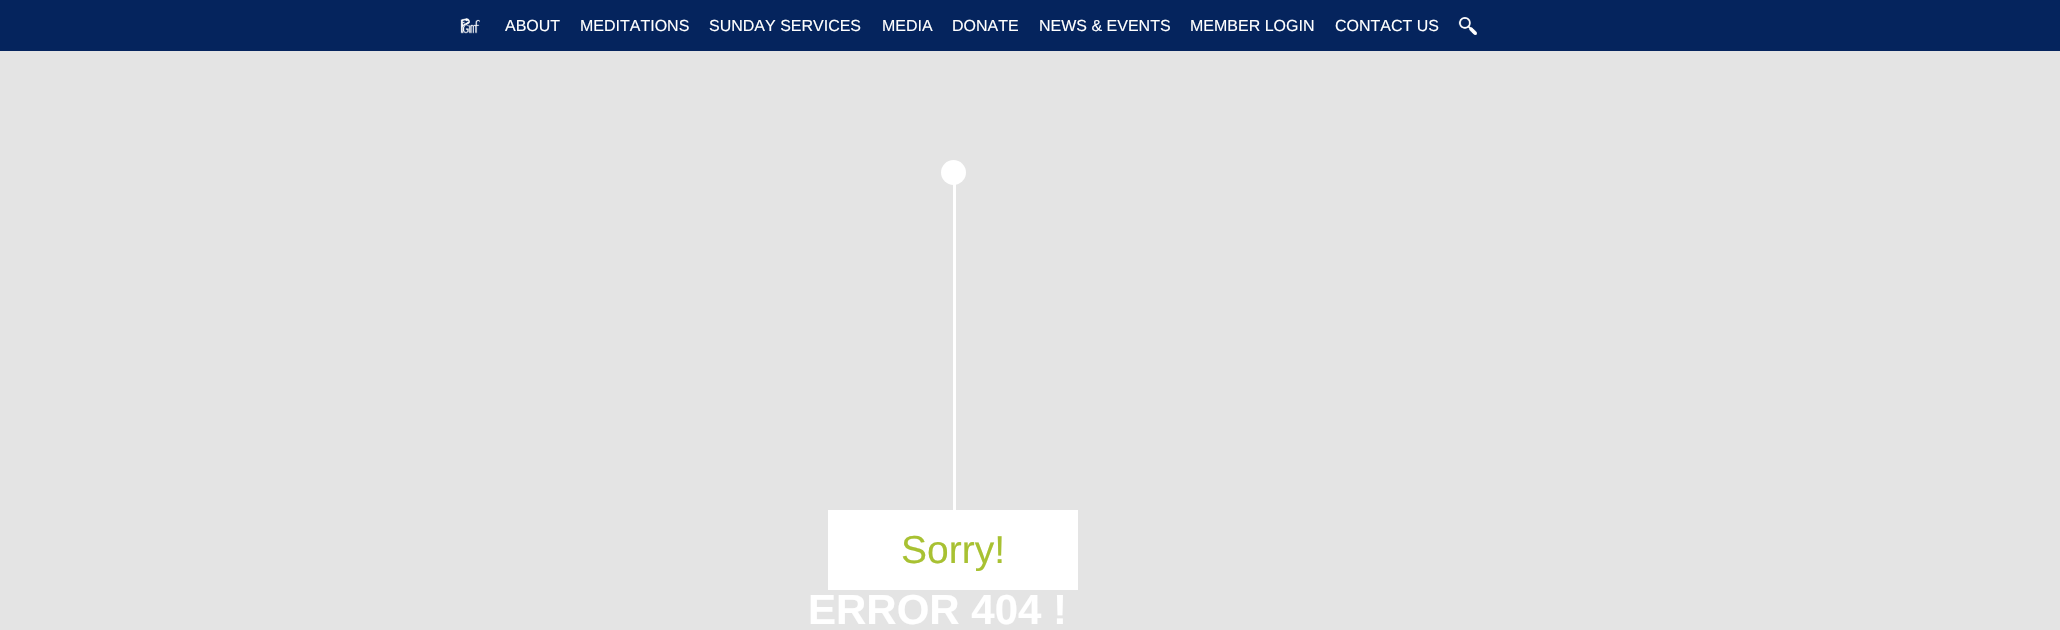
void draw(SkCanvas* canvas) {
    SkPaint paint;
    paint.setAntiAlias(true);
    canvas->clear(0xFFE4E4E4);
    paint.setColor(0xFF05245D);
    canvas->drawRect(SkRect::MakeXYWH(0, 0, 2060, 51), paint);
    canvas->drawImageRect(SkImages::DeferredFromEncodedData(SkData::MakeFromFileName("img1.png")), SkRect::MakeXYWH(460, 18, 20, 16), SkSamplingOptions());
    SkFont font1(fontMgr->matchFamilyStyle("Liberation Sans", SkFontStyle::Normal()), 16);
    font1.setSubpixel(true);
    paint.setColor(0xFFFFFFFF);
    canvas->drawString("ABOUT", 505, 31, font1, paint);
    canvas->drawString("MEDITATIONS", 580, 31, font1, paint);
    canvas->drawString("SUNDAY SERVICES", 709, 31, font1, paint);
    canvas->drawString("MEDIA", 882, 31, font1, paint);
    canvas->drawString("DONATE", 952, 31, font1, paint);
    canvas->drawString("NEWS & EVENTS", 1039, 31, font1, paint);
    canvas->drawString("MEMBER LOGIN", 1190, 31, font1, paint);
    canvas->drawString("CONTACT US", 1335, 31, font1, paint);
    canvas->drawImageRect(SkImages::DeferredFromEncodedData(SkData::MakeFromFileName("img2.png")), SkRect::MakeXYWH(1458, 17, 19, 18), SkSamplingOptions());
    canvas->drawRect(SkRect::MakeXYWH(828, 510, 250, 80), paint);
    canvas->drawCircle(953.5f, 172.5f, 12.5f, paint);
    canvas->drawRect(SkRect::MakeXYWH(953, 180, 3, 335), paint);
    SkFont font2(fontMgr->matchFamilyStyle("Liberation Sans", SkFontStyle::Normal()), 39);
    font2.setSubpixel(true);
    paint.setColor(0xFFA8C132);
    canvas->drawString("Sorry!", 901, 563, font2, paint);
    SkFont font3(fontMgr->matchFamilyStyle("Liberation Sans", SkFontStyle::Bold()), 42);
    font3.setSubpixel(true);
    paint.setColor(0xFFFFFFFF);
    canvas->drawString("ERROR 404 !", 808, 624, font3, paint);
}
